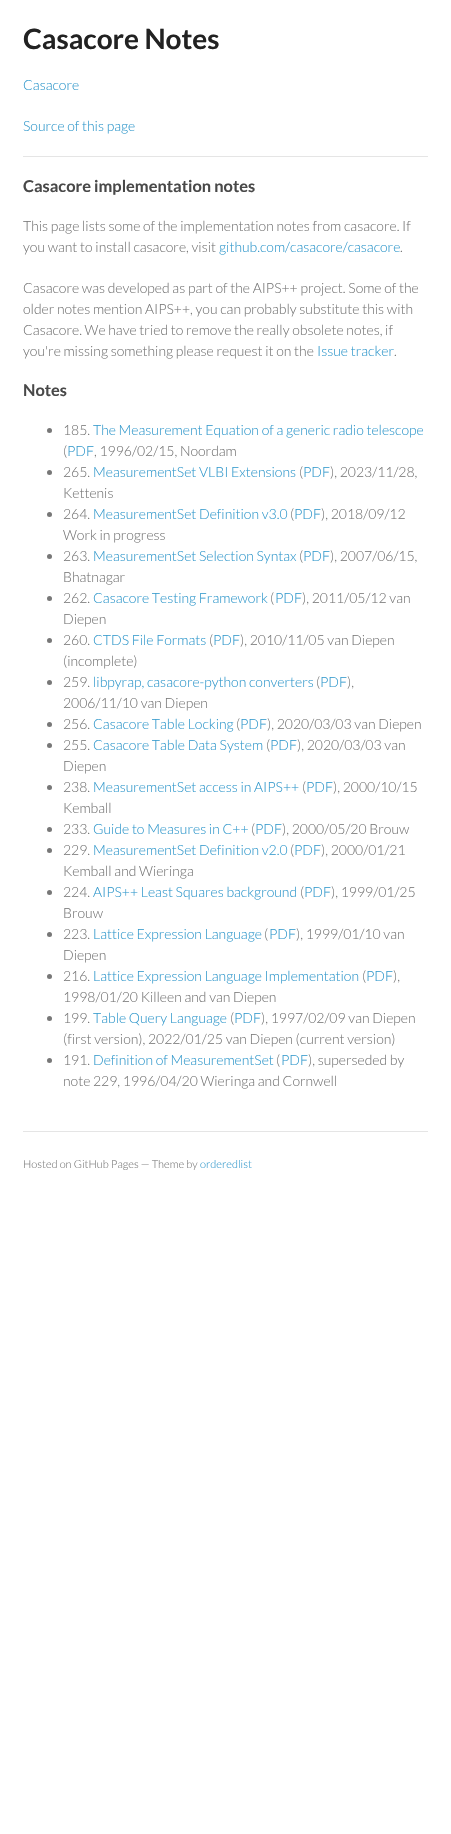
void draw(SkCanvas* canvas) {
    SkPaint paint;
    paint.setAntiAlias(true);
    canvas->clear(0xFFFFFFFF);
    SkFont font1(fontMgr->matchFamilyStyle("Lato", SkFontStyle::Bold()), 28);
    font1.setSubpixel(true);
    paint.setColor(0xFF222222);
    canvas->drawString("Casacore Notes", 23, 49, font1, paint);
    SkFont font2(fontMgr->matchFamilyStyle("Lato", SkFontStyle(300, SkFontStyle::kNormal_Width, SkFontStyle::kUpright_Slant)), 14);
    font2.setSubpixel(true);
    paint.setColor(0xFF3399CC);
    canvas->drawString("Casacore", 23, 90, font2, paint);
    canvas->drawString("Source of this page", 23, 131, font2, paint);
    paint.setColor(0xFFE5E5E5);
    canvas->drawRect(SkRect::MakeXYWH(23, 156, 405, 1), paint);
    canvas->drawRect(SkRect::MakeXYWH(23, 1131, 405, 1), paint);
    SkFont font3(fontMgr->matchFamilyStyle("Lato", SkFontStyle::Bold()), 16.4f);
    font3.setSubpixel(true);
    paint.setColor(0xFF494949);
    canvas->drawString("Casacore implementation notes", 23, 192, font3, paint);
    paint.setColor(0xFF777777);
    canvas->drawString("This page lists some of the implementation notes from casacore. If", 23, 231, font2, paint);
    canvas->drawString("you want to install casacore, visit", 23, 252, font2, paint);
    paint.setColor(0xFF3399CC);
    canvas->drawString("github.com/casacore/casacore", 219, 252, font2, paint);
    paint.setColor(0xFF777777);
    canvas->drawString(".", 400, 252, font2, paint);
    canvas->drawString("Casacore was developed as part of the AIPS++ project. Some of the", 23, 293, font2, paint);
    canvas->drawString("older notes mention AIPS++, you can probably substitute this with", 23, 314, font2, paint);
    canvas->drawString("Casacore. We have tried to remove the really obsolete notes, if", 23, 335, font2, paint);
    canvas->drawString("you're missing something please request it on the", 23, 356, font2, paint);
    paint.setColor(0xFF3399CC);
    canvas->drawString("Issue tracker", 317, 356, font2, paint);
    paint.setColor(0xFF777777);
    canvas->drawString(".", 394, 356, font2, paint);
    paint.setColor(0xFF494949);
    canvas->drawString("Notes", 23, 396, font3, paint);
    paint.setColor(0xFF777777);
    canvas->drawCircle(49.5f, 430.5f, 2.5f, paint);
    canvas->drawString("185.", 63, 435, font2, paint);
    paint.setColor(0xFF3399CC);
    canvas->drawString("The Measurement Equation of a generic radio telescope", 93, 435, font2, paint);
    paint.setColor(0xFF777777);
    canvas->drawString("(", 63, 456, font2, paint);
    paint.setColor(0xFF3399CC);
    canvas->drawString("PDF", 67, 456, font2, paint);
    paint.setColor(0xFF777777);
    canvas->drawString(", 1996/02/15, Noordam", 94, 456, font2, paint);
    canvas->drawCircle(49.5f, 472.5f, 2.5f, paint);
    canvas->drawString("265.", 63, 477, font2, paint);
    paint.setColor(0xFF3399CC);
    canvas->drawString("MeasurementSet VLBI Extensions", 93, 477, font2, paint);
    paint.setColor(0xFF777777);
    canvas->drawString("(", 299, 477, font2, paint);
    paint.setColor(0xFF3399CC);
    canvas->drawString("PDF", 303, 477, font2, paint);
    paint.setColor(0xFF777777);
    canvas->drawString("), 2023/11/28,", 330, 477, font2, paint);
    canvas->drawString("Kettenis", 63, 498, font2, paint);
    canvas->drawCircle(49.5f, 514.5f, 2.5f, paint);
    canvas->drawString("264.", 63, 519, font2, paint);
    paint.setColor(0xFF3399CC);
    canvas->drawString("MeasurementSet Definition v3.0", 93, 519, font2, paint);
    paint.setColor(0xFF777777);
    canvas->drawString("(", 290, 519, font2, paint);
    paint.setColor(0xFF3399CC);
    canvas->drawString("PDF", 294, 519, font2, paint);
    paint.setColor(0xFF777777);
    canvas->drawString("), 2018/09/12", 321, 519, font2, paint);
    canvas->drawString("Work in progress", 63, 540, font2, paint);
    canvas->drawCircle(49.5f, 556.5f, 2.5f, paint);
    canvas->drawString("263.", 63, 561, font2, paint);
    paint.setColor(0xFF3399CC);
    canvas->drawString("MeasurementSet Selection Syntax", 93, 561, font2, paint);
    paint.setColor(0xFF777777);
    canvas->drawString("(", 299, 561, font2, paint);
    paint.setColor(0xFF3399CC);
    canvas->drawString("PDF", 303, 561, font2, paint);
    paint.setColor(0xFF777777);
    canvas->drawString("), 2007/06/15,", 330, 561, font2, paint);
    canvas->drawString("Bhatnagar", 63, 582, font2, paint);
    canvas->drawCircle(49.5f, 598.5f, 2.5f, paint);
    canvas->drawString("262.", 63, 603, font2, paint);
    paint.setColor(0xFF3399CC);
    canvas->drawString("Casacore Testing Framework", 93, 603, font2, paint);
    paint.setColor(0xFF777777);
    canvas->drawString("(", 270, 603, font2, paint);
    paint.setColor(0xFF3399CC);
    canvas->drawString("PDF", 275, 603, font2, paint);
    paint.setColor(0xFF777777);
    canvas->drawString("), 2011/05/12 van", 302, 603, font2, paint);
    canvas->drawString("Diepen", 63, 624, font2, paint);
    canvas->drawCircle(49.5f, 640.5f, 2.5f, paint);
    canvas->drawString("260.", 63, 645, font2, paint);
    paint.setColor(0xFF3399CC);
    canvas->drawString("CTDS File Formats", 93, 645, font2, paint);
    paint.setColor(0xFF777777);
    canvas->drawString("(", 209, 645, font2, paint);
    paint.setColor(0xFF3399CC);
    canvas->drawString("PDF", 213, 645, font2, paint);
    paint.setColor(0xFF777777);
    canvas->drawString("), 2010/11/05 van Diepen", 240, 645, font2, paint);
    canvas->drawString("(incomplete)", 63, 666, font2, paint);
    canvas->drawCircle(49.5f, 682.5f, 2.5f, paint);
    canvas->drawString("259.", 63, 687, font2, paint);
    paint.setColor(0xFF3399CC);
    canvas->drawString("libpyrap, casacore-python converters", 93, 687, font2, paint);
    paint.setColor(0xFF777777);
    canvas->drawString("(", 316, 687, font2, paint);
    paint.setColor(0xFF3399CC);
    canvas->drawString("PDF", 320, 687, font2, paint);
    paint.setColor(0xFF777777);
    canvas->drawString("),", 347, 687, font2, paint);
    canvas->drawString("2006/11/10 van Diepen", 63, 708, font2, paint);
    canvas->drawCircle(49.5f, 724.5f, 2.5f, paint);
    canvas->drawString("256.", 63, 729, font2, paint);
    paint.setColor(0xFF3399CC);
    canvas->drawString("Casacore Table Locking", 93, 729, font2, paint);
    paint.setColor(0xFF777777);
    canvas->drawString("(", 236, 729, font2, paint);
    paint.setColor(0xFF3399CC);
    canvas->drawString("PDF", 240, 729, font2, paint);
    paint.setColor(0xFF777777);
    canvas->drawString("), 2020/03/03 van Diepen", 267, 729, font2, paint);
    canvas->drawCircle(49.5f, 745.5f, 2.5f, paint);
    canvas->drawString("255.", 63, 750, font2, paint);
    paint.setColor(0xFF3399CC);
    canvas->drawString("Casacore Table Data System", 93, 750, font2, paint);
    paint.setColor(0xFF777777);
    canvas->drawString("(", 266, 750, font2, paint);
    paint.setColor(0xFF3399CC);
    canvas->drawString("PDF", 270, 750, font2, paint);
    paint.setColor(0xFF777777);
    canvas->drawString("), 2020/03/03 van", 297, 750, font2, paint);
    canvas->drawString("Diepen", 63, 771, font2, paint);
    canvas->drawCircle(49.5f, 787.5f, 2.5f, paint);
    canvas->drawString("238.", 63, 792, font2, paint);
    paint.setColor(0xFF3399CC);
    canvas->drawString("MeasurementSet access in AIPS++", 93, 792, font2, paint);
    paint.setColor(0xFF777777);
    canvas->drawString("(", 302, 792, font2, paint);
    paint.setColor(0xFF3399CC);
    canvas->drawString("PDF", 306, 792, font2, paint);
    paint.setColor(0xFF777777);
    canvas->drawString("), 2000/10/15", 333, 792, font2, paint);
    canvas->drawString("Kemball", 63, 813, font2, paint);
    canvas->drawCircle(49.5f, 829.5f, 2.5f, paint);
    canvas->drawString("233.", 63, 834, font2, paint);
    paint.setColor(0xFF3399CC);
    canvas->drawString("Guide to Measures in C++", 93, 834, font2, paint);
    paint.setColor(0xFF777777);
    canvas->drawString("(", 251, 834, font2, paint);
    paint.setColor(0xFF3399CC);
    canvas->drawString("PDF", 255, 834, font2, paint);
    paint.setColor(0xFF777777);
    canvas->drawString("), 2000/05/20 Brouw", 282, 834, font2, paint);
    canvas->drawCircle(49.5f, 850.5f, 2.5f, paint);
    canvas->drawString("229.", 63, 855, font2, paint);
    paint.setColor(0xFF3399CC);
    canvas->drawString("MeasurementSet Definition v2.0", 93, 855, font2, paint);
    paint.setColor(0xFF777777);
    canvas->drawString("(", 290, 855, font2, paint);
    paint.setColor(0xFF3399CC);
    canvas->drawString("PDF", 294, 855, font2, paint);
    paint.setColor(0xFF777777);
    canvas->drawString("), 2000/01/21", 321, 855, font2, paint);
    canvas->drawString("Kemball and Wieringa", 63, 876, font2, paint);
    canvas->drawCircle(49.5f, 892.5f, 2.5f, paint);
    canvas->drawString("224.", 63, 897, font2, paint);
    paint.setColor(0xFF3399CC);
    canvas->drawString("AIPS++ Least Squares background", 93, 897, font2, paint);
    paint.setColor(0xFF777777);
    canvas->drawString("(", 300, 897, font2, paint);
    paint.setColor(0xFF3399CC);
    canvas->drawString("PDF", 304, 897, font2, paint);
    paint.setColor(0xFF777777);
    canvas->drawString("), 1999/01/25", 331, 897, font2, paint);
    canvas->drawString("Brouw", 63, 918, font2, paint);
    canvas->drawCircle(49.5f, 934.5f, 2.5f, paint);
    canvas->drawString("223.", 63, 939, font2, paint);
    paint.setColor(0xFF3399CC);
    canvas->drawString("Lattice Expression Language", 93, 939, font2, paint);
    paint.setColor(0xFF777777);
    canvas->drawString("(", 264, 939, font2, paint);
    paint.setColor(0xFF3399CC);
    canvas->drawString("PDF", 269, 939, font2, paint);
    paint.setColor(0xFF777777);
    canvas->drawString("), 1999/01/10 van", 296, 939, font2, paint);
    canvas->drawString("Diepen", 63, 960, font2, paint);
    canvas->drawCircle(49.5f, 976.5f, 2.5f, paint);
    canvas->drawString("216.", 63, 981, font2, paint);
    paint.setColor(0xFF3399CC);
    canvas->drawString("Lattice Expression Language Implementation", 93, 981, font2, paint);
    paint.setColor(0xFF777777);
    canvas->drawString("(", 362, 981, font2, paint);
    paint.setColor(0xFF3399CC);
    canvas->drawString("PDF", 366, 981, font2, paint);
    paint.setColor(0xFF777777);
    canvas->drawString("),", 393, 981, font2, paint);
    canvas->drawString("1998/01/20 Killeen and van Diepen", 63, 1002, font2, paint);
    canvas->drawCircle(49.5f, 1018.5f, 2.5f, paint);
    canvas->drawString("199.", 63, 1023, font2, paint);
    paint.setColor(0xFF3399CC);
    canvas->drawString("Table Query Language", 93, 1023, font2, paint);
    paint.setColor(0xFF777777);
    canvas->drawString("(", 230, 1023, font2, paint);
    paint.setColor(0xFF3399CC);
    canvas->drawString("PDF", 234, 1023, font2, paint);
    paint.setColor(0xFF777777);
    canvas->drawString("), 1997/02/09 van Diepen", 261, 1023, font2, paint);
    canvas->drawString("(first version), 2022/01/25 van Diepen (current version)", 63, 1044, font2, paint);
    canvas->drawCircle(49.5f, 1060.5f, 2.5f, paint);
    canvas->drawString("191.", 63, 1065, font2, paint);
    paint.setColor(0xFF3399CC);
    canvas->drawString("Definition of MeasurementSet", 93, 1065, font2, paint);
    paint.setColor(0xFF777777);
    canvas->drawString("(", 276, 1065, font2, paint);
    paint.setColor(0xFF3399CC);
    canvas->drawString("PDF", 281, 1065, font2, paint);
    paint.setColor(0xFF777777);
    canvas->drawString("), superseded by", 308, 1065, font2, paint);
    canvas->drawString("note 229, 1996/04/20 Wieringa and Cornwell", 63, 1086, font2, paint);
    SkFont font4(fontMgr->matchFamilyStyle("Lato", SkFontStyle(300, SkFontStyle::kNormal_Width, SkFontStyle::kUpright_Slant)), 11);
    font4.setSubpixel(true);
    canvas->drawString("Hosted on GitHub Pages — Theme by", 23, 1168, font4, paint);
    paint.setColor(0xFF3399CC);
    canvas->drawString("orderedlist", 200, 1168, font4, paint);
}
